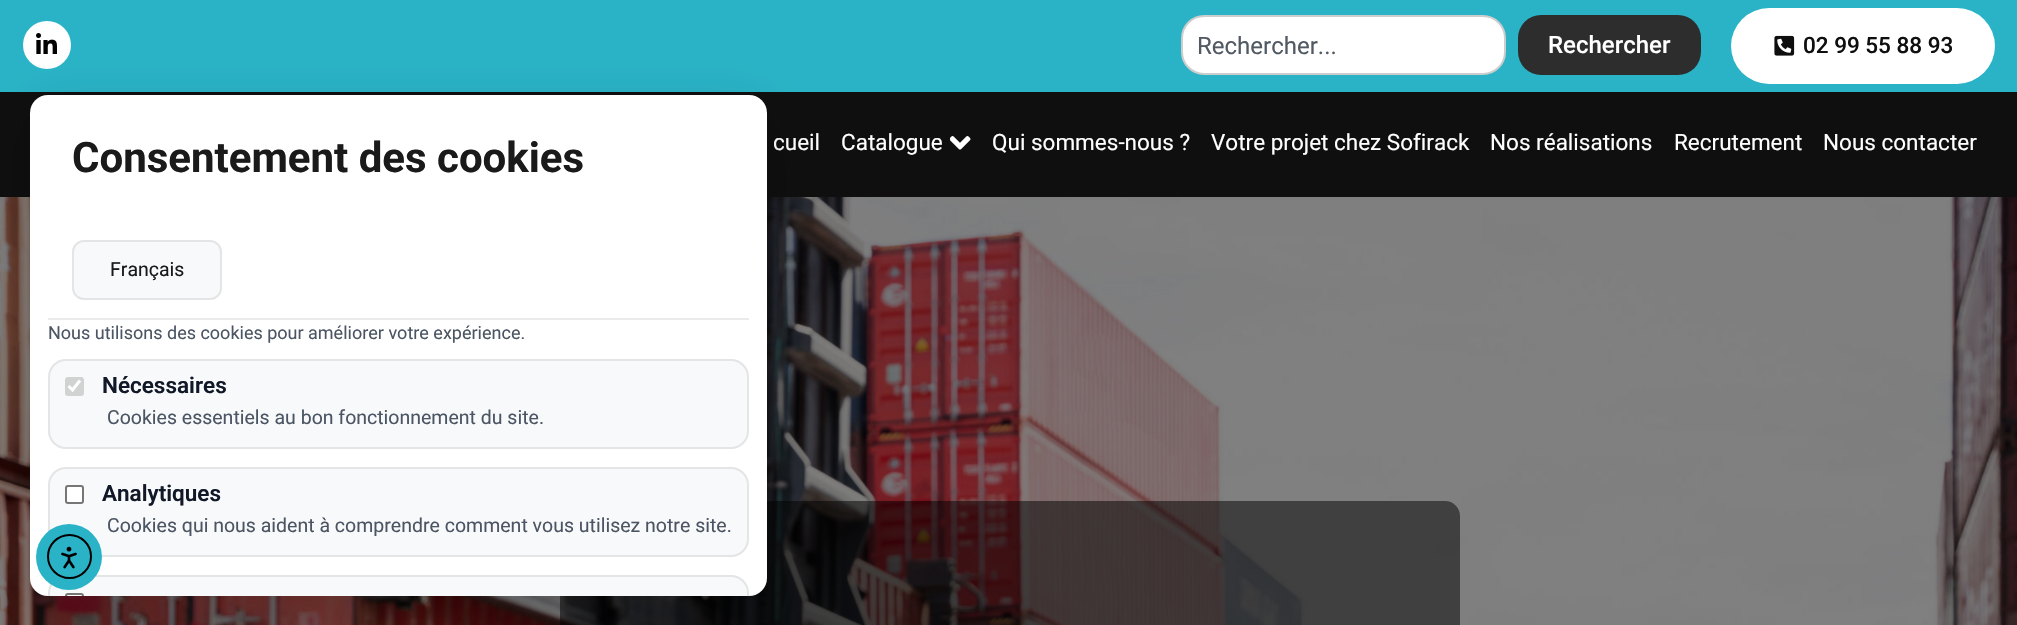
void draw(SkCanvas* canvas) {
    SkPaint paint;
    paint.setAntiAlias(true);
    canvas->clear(0xFFFFFFFF);
    paint.setColor(0xFF2AB3C7);
    canvas->drawRect(SkRect::MakeXYWH(0, 0, 2017, 92), paint);
    paint.setColor(0xFFFFFFFF);
    canvas->drawCircle(47, 45, 24, paint);
    canvas->drawImageRect(SkImages::DeferredFromEncodedData(SkData::MakeFromFileName("img1.png")), SkRect::MakeXYWH(36, 33, 21, 21), SkSamplingOptions());
    canvas->drawRoundRect(SkRect::MakeXYWH(1182, 16, 323, 58), 22, 22, paint);
    paint.setStyle(SkPaint::kStroke_Style);
    paint.setStrokeWidth(2);
    paint.setColor(0xFFCDCDCD);
    canvas->drawRoundRect(SkRect::MakeXYWH(1182, 16, 323, 58), 22, 22, paint);
    SkFont font1(fontMgr->matchFamilyStyle("Roboto", SkFontStyle::Normal()), 24);
    font1.setSubpixel(true);
    paint.setStyle(SkPaint::kFill_Style);
    paint.setColor(0xFF515962);
    canvas->drawString("Rechercher...", 1197, 54, font1, paint);
    paint.setColor(0xFF2D2D2D);
    canvas->drawRoundRect(SkRect::MakeXYWH(1518, 15, 183, 60), 23, 23, paint);
    SkFont font2(fontMgr->matchFamilyStyle("Roboto", SkFontStyle(500, SkFontStyle::kNormal_Width, SkFontStyle::kUpright_Slant)), 24);
    font2.setSubpixel(true);
    paint.setColor(0xFFFFFFFF);
    canvas->drawString("Rechercher", 1548, 53, font2, paint);
    canvas->drawRoundRect(SkRect::MakeXYWH(1731, 8, 264, 76), 38, 38, paint);
    canvas->drawImageRect(SkImages::DeferredFromEncodedData(SkData::MakeFromFileName("img2.png")), SkRect::MakeXYWH(1774, 35, 21, 21), SkSamplingOptions());
    SkFont font3(fontMgr->matchFamilyStyle("Roboto", SkFontStyle(500, SkFontStyle::kNormal_Width, SkFontStyle::kUpright_Slant)), 22.5f);
    font3.setSubpixel(true);
    paint.setColor(0xFF0F0F0F);
    canvas->drawString("02 99 55 88 93", 1803, 53, font3, paint);
    canvas->drawRect(SkRect::MakeXYWH(0, 92, 2017, 105), paint);
    SkFont font4(fontMgr->matchFamilyStyle("Roboto", SkFontStyle::Normal()), 22.5f);
    font4.setSubpixel(true);
    paint.setColor(0xFFFFFFFF);
    canvas->drawString("cueil", 773, 150, font4, paint);
    canvas->drawString("Catalogue", 841, 150, font4, paint);
    canvas->drawImageRect(SkImages::DeferredFromEncodedData(SkData::MakeFromFileName("img3.png")), SkRect::MakeXYWH(950, 136, 21, 14), SkSamplingOptions());
    canvas->drawString("Qui sommes-nous ?", 992, 150, font4, paint);
    canvas->drawString("Votre projet chez Sofirack", 1211, 150, font4, paint);
    canvas->drawString("Nos réalisations", 1490, 150, font4, paint);
    canvas->drawString("Recrutement", 1674, 150, font4, paint);
    canvas->drawString("Nous contacter", 1823, 150, font4, paint);
    canvas->drawImageRect(SkImages::DeferredFromEncodedData(SkData::MakeFromFileName("img4.png")), SkRect::MakeXYWH(0, 197, 2017, 428), SkSamplingOptions());
    paint.setColor(0x80000000);
    canvas->drawRoundRect(SkRect::MakeXYWH(560, 501, 900, 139), 15, 15, paint);
    paint.setColor(0x1F000000);
    paint.setMaskFilter(SkMaskFilter::MakeBlur(kNormal_SkBlurStyle, 30));
    canvas->drawRoundRect(SkRect::MakeXYWH(30, 110, 737, 501), 18, 18, paint);
    paint.setMaskFilter(nullptr);
    paint.setColor(0xFFFFFFFF);
    canvas->drawRoundRect(SkRect::MakeXYWH(30, 95, 737, 501), 18, 18, paint);
    paint.setColor(0xFFEBEBEB);
    canvas->drawRect(SkRect::MakeXYWH(48, 318, 701, 2), paint);
    SkFont font5(fontMgr->matchFamilyStyle("Roboto", SkFontStyle::Bold()), 42);
    font5.setSubpixel(true);
    paint.setColor(0xFF1A1A1A);
    canvas->drawString("Consentement des cookies", 72, 172, font5, paint);
    paint.setColor(0xFFF8F9FA);
    canvas->drawRoundRect(SkRect::MakeXYWH(72, 240, 150, 60), 12, 12, paint);
    paint.setStyle(SkPaint::kStroke_Style);
    paint.setColor(0x14000000);
    canvas->drawRoundRect(SkRect::MakeXYWH(73, 241, 148, 58), 11, 11, paint);
    SkFont font6(fontMgr->matchFamilyStyle("Roboto", SkFontStyle::Normal()), 19.5f);
    font6.setSubpixel(true);
    paint.setStyle(SkPaint::kFill_Style);
    paint.setColor(0xFF1A1A1A);
    canvas->drawString("Français", 110, 276, font6, paint);
    SkFont font7(fontMgr->matchFamilyStyle("Roboto", SkFontStyle::Normal()), 18);
    font7.setSubpixel(true);
    paint.setColor(0xFF4B5563);
    canvas->drawString("Nous utilisons des cookies pour améliorer votre expérience.", 48, 339, font7, paint);
    paint.setColor(0xFFF8F9FA);
    canvas->drawRoundRect(SkRect::MakeXYWH(48, 359, 701, 90), 18, 18, paint);
    paint.setStyle(SkPaint::kStroke_Style);
    paint.setColor(0x14000000);
    canvas->drawRoundRect(SkRect::MakeXYWH(49, 360, 699, 88), 17, 17, paint);
    paint.setStyle(SkPaint::kFill_Style);
    paint.setColor(0xFFD1D2D2);
    canvas->drawRoundRect(SkRect::MakeXYWH(65, 377, 19, 19), 3, 3, paint);
    paint.setStyle(SkPaint::kStroke_Style);
    paint.setStrokeWidth(3.1f);
    paint.setColor(0xFFFFFFFF);
    canvas->drawPath(SkPathBuilder().moveTo(68.5f, 386).lineTo(72.5f, 390).lineTo(80, 380.5f).detach(), paint);
    SkFont font8(fontMgr->matchFamilyStyle("Roboto", SkFontStyle(600, SkFontStyle::kNormal_Width, SkFontStyle::kUpright_Slant)), 22.5f);
    font8.setSubpixel(true);
    paint.setStyle(SkPaint::kFill_Style);
    paint.setColor(0xFF111827);
    canvas->drawString("Nécessaires", 102, 393, font8, paint);
    paint.setColor(0xFF4B5563);
    canvas->drawString("Cookies essentiels au bon fonctionnement du site.", 107, 424, font6, paint);
    paint.setColor(0xFFF8F9FA);
    canvas->drawRoundRect(SkRect::MakeXYWH(48, 467, 701, 90), 18, 18, paint);
    paint.setStyle(SkPaint::kStroke_Style);
    paint.setStrokeWidth(2);
    paint.setColor(0x14000000);
    canvas->drawRoundRect(SkRect::MakeXYWH(49, 468, 699, 88), 17, 17, paint);
    paint.setStyle(SkPaint::kFill_Style);
    paint.setColor(0xFFFFFFFF);
    canvas->drawRoundRect(SkRect::MakeXYWH(66, 486, 17, 17), 2, 2, paint);
    paint.setStyle(SkPaint::kStroke_Style);
    paint.setColor(0xFF767676);
    canvas->drawRoundRect(SkRect::MakeXYWH(66, 486, 17, 17), 2, 2, paint);
    paint.setStyle(SkPaint::kFill_Style);
    paint.setColor(0xFF111827);
    canvas->drawString("Analytiques", 102, 501, font8, paint);
    paint.setColor(0xFF4B5563);
    canvas->drawString("Cookies qui nous aident à comprendre comment vous utilisez notre site.", 107, 532, font6, paint);
    paint.setColor(0xFFF8F9FA);
    canvas->drawPath(SkPathBuilder().moveTo(66, 575).lineTo(731, 575).cubicTo(741, 575, 749, 583, 749, 593).lineTo(749, 596).lineTo(48, 596).lineTo(48, 593).cubicTo(48, 583, 56, 575, 66, 575).close().detach(), paint);
    canvas->save();
    canvas->clipRect(SkRect::MakeXYWH(30, 95, 737, 501));
    paint.setStyle(SkPaint::kStroke_Style);
    paint.setColor(0x14000000);
    canvas->drawRoundRect(SkRect::MakeXYWH(49, 576, 699, 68), 17, 17, paint);
    canvas->restore();
    paint.setStyle(SkPaint::kFill_Style);
    paint.setColor(0xFFFFFFFF);
    canvas->drawPath(SkPathBuilder().moveTo(68, 593).lineTo(81, 593).cubicTo(82.5f, 593, 84, 594.5f, 84, 596).lineTo(65, 596).cubicTo(65, 594.5f, 66.5f, 593, 68, 593).close().detach(), paint);
    canvas->save();
    canvas->clipRect(SkRect::MakeXYWH(30, 95, 737, 501));
    paint.setStyle(SkPaint::kStroke_Style);
    paint.setColor(0xFF767676);
    canvas->drawRoundRect(SkRect::MakeXYWH(66, 594, 17, 17), 2, 2, paint);
    canvas->restore();
    paint.setStyle(SkPaint::kFill_Style);
    paint.setColor(0xFF2AB3C7);
    canvas->drawCircle(69, 557, 33, paint);
    paint.setStyle(SkPaint::kStroke_Style);
    paint.setColor(0xFF000000);
    canvas->drawCircle(69.5f, 556.5f, 21.5f, paint);
    canvas->drawImageRect(SkImages::DeferredFromEncodedData(SkData::MakeFromFileName("img5.png")), SkRect::MakeXYWH(61, 546, 16, 23), SkSamplingOptions());
}
